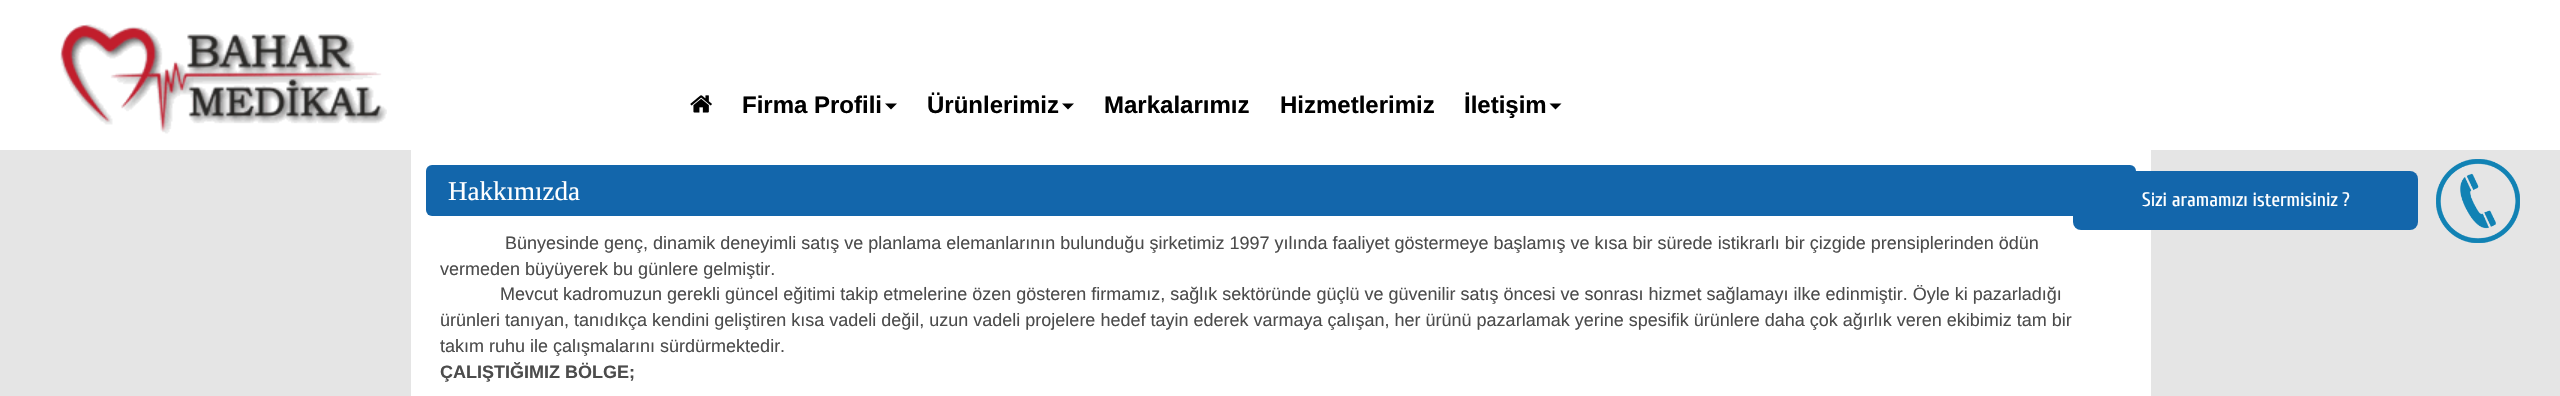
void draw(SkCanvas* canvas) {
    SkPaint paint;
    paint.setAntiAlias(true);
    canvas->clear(0xFFE5E5E5);
    paint.setColor(0xFFFFFFFF);
    canvas->drawRect(SkRect::MakeXYWH(0, 0, 2560, 150), paint);
    canvas->drawImageRect(SkImages::DeferredFromEncodedData(SkData::MakeFromFileName("img1.png")), SkRect::MakeXYWH(60, 24, 327, 110), SkSamplingOptions());
    canvas->drawImageRect(SkImages::DeferredFromEncodedData(SkData::MakeFromFileName("img2.png")), SkRect::MakeXYWH(690, 95, 22, 18), SkSamplingOptions());
    SkFont font1(fontMgr->matchFamilyStyle("Liberation Sans", SkFontStyle::Bold()), 24);
    font1.setSubpixel(true);
    paint.setColor(0xFF000000);
    canvas->drawString("Firma Profili", 742, 113, font1, paint);
    canvas->drawPath(SkPathBuilder().moveTo(885, 103.5f).lineTo(897, 103.5f).lineTo(891, 109.5f).close().detach(), paint);
    canvas->drawString("Ürünlerimiz", 927, 113, font1, paint);
    canvas->drawPath(SkPathBuilder().moveTo(1062, 103.5f).lineTo(1074, 103.5f).lineTo(1068, 109.5f).close().detach(), paint);
    canvas->drawString("Markalarımız", 1104, 113, font1, paint);
    canvas->drawString("Hizmetlerimiz", 1280, 113, font1, paint);
    canvas->drawString("İletişim", 1464, 113, font1, paint);
    canvas->drawPath(SkPathBuilder().moveTo(1549.5f, 103.5f).lineTo(1561.5f, 103.5f).lineTo(1555.5f, 109.5f).close().detach(), paint);
    paint.setColor(0xFFFFFFFF);
    canvas->drawRect(SkRect::MakeXYWH(411, 150, 1740, 246), paint);
    paint.setColor(0xFF1366AB);
    canvas->drawRoundRect(SkRect::MakeXYWH(426, 165, 1710, 51), 6, 6, paint);
    SkFont font2(fontMgr->matchFamilyStyle("Liberation Serif", SkFontStyle::Normal()), 27);
    font2.setSubpixel(true);
    paint.setColor(0xFFFFFFFF);
    canvas->drawString("Hakkımızda", 448, 200, font2, paint);
    SkFont font3(fontMgr->matchFamilyStyle("Liberation Sans", SkFontStyle::Normal()), 18);
    font3.setSubpixel(true);
    paint.setColor(0xFF4C4C4C);
    canvas->drawString("Bünyesinde genç, dinamik deneyimli satış ve planlama elemanlarının bulunduğu şirketimiz 1997 yılında faaliyet göstermeye başlamış ve kısa bir sürede istikrarlı bir çizgide prensiplerinden ödün", 505, 249, font3, paint);
    canvas->drawString("vermeden büyüyerek bu günlere gelmiştir.", 440, 275, font3, paint);
    canvas->drawString("Mevcut kadromuzun gerekli güncel eğitimi takip etmelerine özen gösteren firmamız, sağlık sektöründe güçlü ve güvenilir satış öncesi ve sonrası hizmet sağlamayı ilke edinmiştir. Öyle ki pazarladığı", 500, 300, font3, paint);
    canvas->drawString("ürünleri tanıyan, tanıdıkça kendini geliştiren kısa vadeli değil, uzun vadeli projelere hedef tayin ederek varmaya çalışan, her ürünü pazarlamak yerine spesifik ürünlere daha çok ağırlık veren ekibimiz tam bir", 440, 326, font3, paint);
    canvas->drawString("takım ruhu ile çalışmalarını sürdürmektedir.", 440, 352, font3, paint);
    SkFont font4(fontMgr->matchFamilyStyle("Liberation Sans", SkFontStyle::Bold()), 18);
    font4.setSubpixel(true);
    canvas->drawString("ÇALIŞTIĞIMIZ BÖLGE;", 440, 378, font4, paint);
    paint.setColor(0xFF1366AB);
    canvas->drawRoundRect(SkRect::MakeXYWH(2073, 171, 345, 59), 8, 8, paint);
    SkFont font5(fontMgr->matchFamilyStyle("Cuprum", SkFontStyle::Normal()), 19.5f);
    font5.setSubpixel(true);
    paint.setColor(0xFFFFFFFF);
    canvas->drawString("Sizi aramamızı istermisiniz ?", 2142, 206, font5, paint);
    canvas->drawImageRect(SkImages::DeferredFromEncodedData(SkData::MakeFromFileName("img3.png")), SkRect::MakeXYWH(2436, 159, 84, 84), SkSamplingOptions());
}
